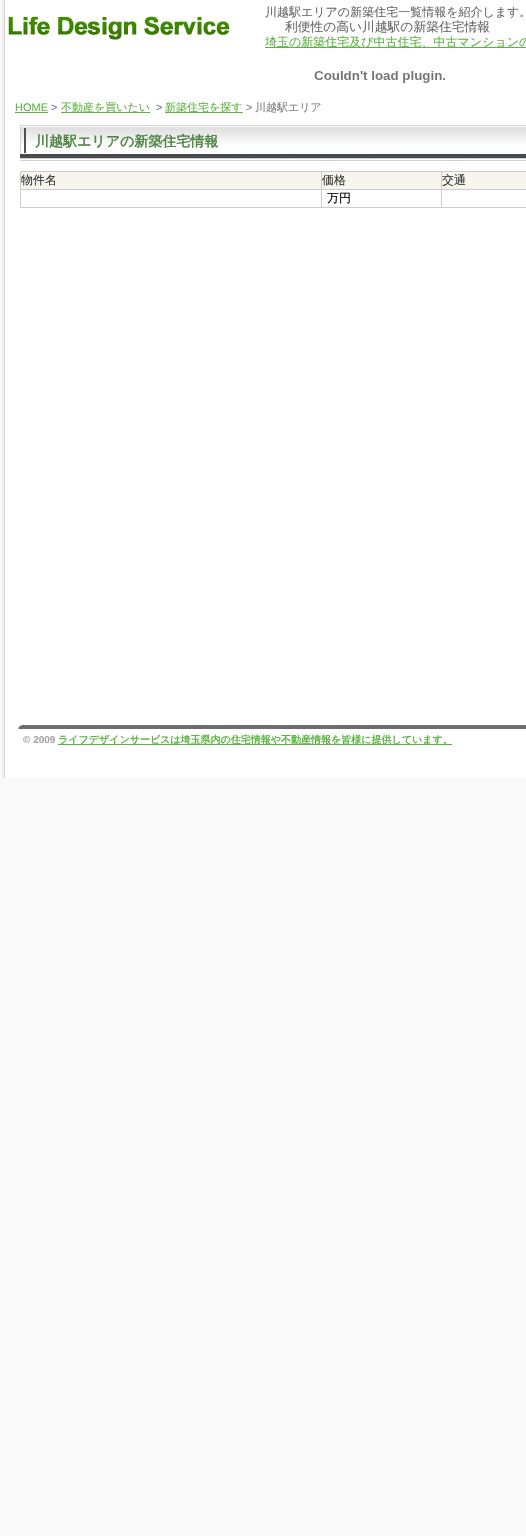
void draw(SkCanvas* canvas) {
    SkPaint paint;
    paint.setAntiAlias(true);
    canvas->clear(0xFFF9F9F9);
    canvas->drawImageRect(SkImages::DeferredFromEncodedData(SkData::MakeFromFileName("img1.png")), SkRect::MakeXYWH(2, 0, 524, 778), SkSamplingOptions());
    SkFont font1(fontMgr->matchFamilyStyle("WenQuanYi Zen Hei", SkFontStyle(500, SkFontStyle::kNormal_Width, SkFontStyle::kUpright_Slant)), 12);
    font1.setSubpixel(true);
    paint.setColor(0xFF666666);
    canvas->drawString("川越駅エリアの新築住宅一覧情報を紹介します。", 265, 16, font1, paint);
    canvas->drawImageRect(SkImages::DeferredFromEncodedData(SkData::MakeFromFileName("img2.png")), SkRect::MakeXYWH(8, 16, 222, 24), SkSamplingOptions());
    SkFont font2(fontMgr->matchFamilyStyle("WenQuanYi Zen Hei", SkFontStyle(500, SkFontStyle::kNormal_Width, SkFontStyle::kUpright_Slant)), 12.75f);
    font2.setSubpixel(true);
    canvas->drawString("利便性の高い川越駅の新築住宅情報", 285, 31, font2, paint);
    paint.setColor(0xFF59B43F);
    canvas->drawRect(SkRect::MakeXYWH(265, 47, 261, 1), paint);
    canvas->drawString("埼玉の新築住宅及び中古住宅、中古マンションの", 265, 46, font1, paint);
    canvas->drawImageRect(SkImages::DeferredFromEncodedData(SkData::MakeFromFileName("img3.png")), SkRect::MakeXYWH(314, 71, 131, 12), SkSamplingOptions());
    SkFont font3(fontMgr->matchFamilyStyle("Liberation Sans", SkFontStyle::Normal()), 11);
    font3.setSubpixel(true);
    canvas->drawString("HOME", 15, 111, font3, paint);
    canvas->drawRect(SkRect::MakeXYWH(15, 112, 33, 1), paint);
    paint.setColor(0xFF7D7D7D);
    canvas->drawString(">", 51, 111, font3, paint);
    paint.setColor(0xFF59B43F);
    canvas->drawRect(SkRect::MakeXYWH(61, 112, 89, 1), paint);
    SkFont font4(fontMgr->matchFamilyStyle("WenQuanYi Zen Hei", SkFontStyle(500, SkFontStyle::kNormal_Width, SkFontStyle::kUpright_Slant)), 11);
    font4.setSubpixel(true);
    canvas->drawString("不動産を買いたい", 61, 111, font4, paint);
    paint.setColor(0xFF7D7D7D);
    canvas->drawString(">", 156, 111, font3, paint);
    paint.setColor(0xFF59B43F);
    canvas->drawRect(SkRect::MakeXYWH(165, 112, 78, 1), paint);
    canvas->drawString("新築住宅を探す", 165, 111, font4, paint);
    paint.setColor(0xFF7D7D7D);
    canvas->drawString(">", 246, 111, font3, paint);
    canvas->drawString("川越駅エリア", 255, 111, font4, paint);
    canvas->drawImageRect(SkImages::DeferredFromEncodedData(SkData::MakeFromFileName("img4.png")), SkRect::MakeXYWH(20, 125, 506, 36), SkSamplingOptions());
    SkFont font5(fontMgr->matchFamilyStyle("WenQuanYi Zen Hei", SkFontStyle::Bold()), 14);
    font5.setSubpixel(true);
    paint.setColor(0xFF4F8444);
    canvas->drawString("川越駅エリアの新築住宅情報", 35, 146, font5, paint);
    paint.setColor(0xFFCCCCCC);
    canvas->drawRect(SkRect::MakeXYWH(20, 171, 506, 37), paint);
    paint.setColor(0xFFF7F5EE);
    canvas->drawRect(SkRect::MakeXYWH(21, 172, 300, 17), paint);
    paint.setColor(0xFF333333);
    canvas->drawString("物件名", 21, 184, font1, paint);
    paint.setColor(0xFFF7F5EE);
    canvas->drawRect(SkRect::MakeXYWH(322, 172, 119, 17), paint);
    paint.setColor(0xFF333333);
    canvas->drawString("価格", 322, 184, font1, paint);
    paint.setColor(0xFFF7F5EE);
    canvas->drawRect(SkRect::MakeXYWH(442, 172, 84, 17), paint);
    paint.setColor(0xFF333333);
    canvas->drawString("交通", 442, 184, font1, paint);
    paint.setColor(0xFFFFFFFF);
    canvas->drawRect(SkRect::MakeXYWH(21, 190, 300, 17), paint);
    canvas->drawRect(SkRect::MakeXYWH(322, 190, 119, 17), paint);
    paint.setColor(0xFF000000);
    canvas->drawString("万円", 327, 202, font1, paint);
    paint.setColor(0xFFFFFFFF);
    canvas->drawRect(SkRect::MakeXYWH(442, 190, 84, 17), paint);
    canvas->drawImageRect(SkImages::DeferredFromEncodedData(SkData::MakeFromFileName("img5.png")), SkRect::MakeXYWH(18, 725, 508, 4), SkSamplingOptions());
    SkFont font6(fontMgr->matchFamilyStyle("Liberation Sans", SkFontStyle::Bold()), 10);
    font6.setSubpixel(true);
    paint.setColor(0xFFA4A4A4);
    canvas->drawString("© 2009", 23, 743, font6, paint);
    paint.setColor(0xFF59B43F);
    canvas->drawRect(SkRect::MakeXYWH(58, 744, 394, 1), paint);
    SkFont font7(fontMgr->matchFamilyStyle("WenQuanYi Zen Hei", SkFontStyle::Bold()), 10);
    font7.setSubpixel(true);
    canvas->drawString("ライフデザインサービスは埼玉県内の住宅情報や不動産情報を皆様に提供しています。", 58, 743, font7, paint);
}
